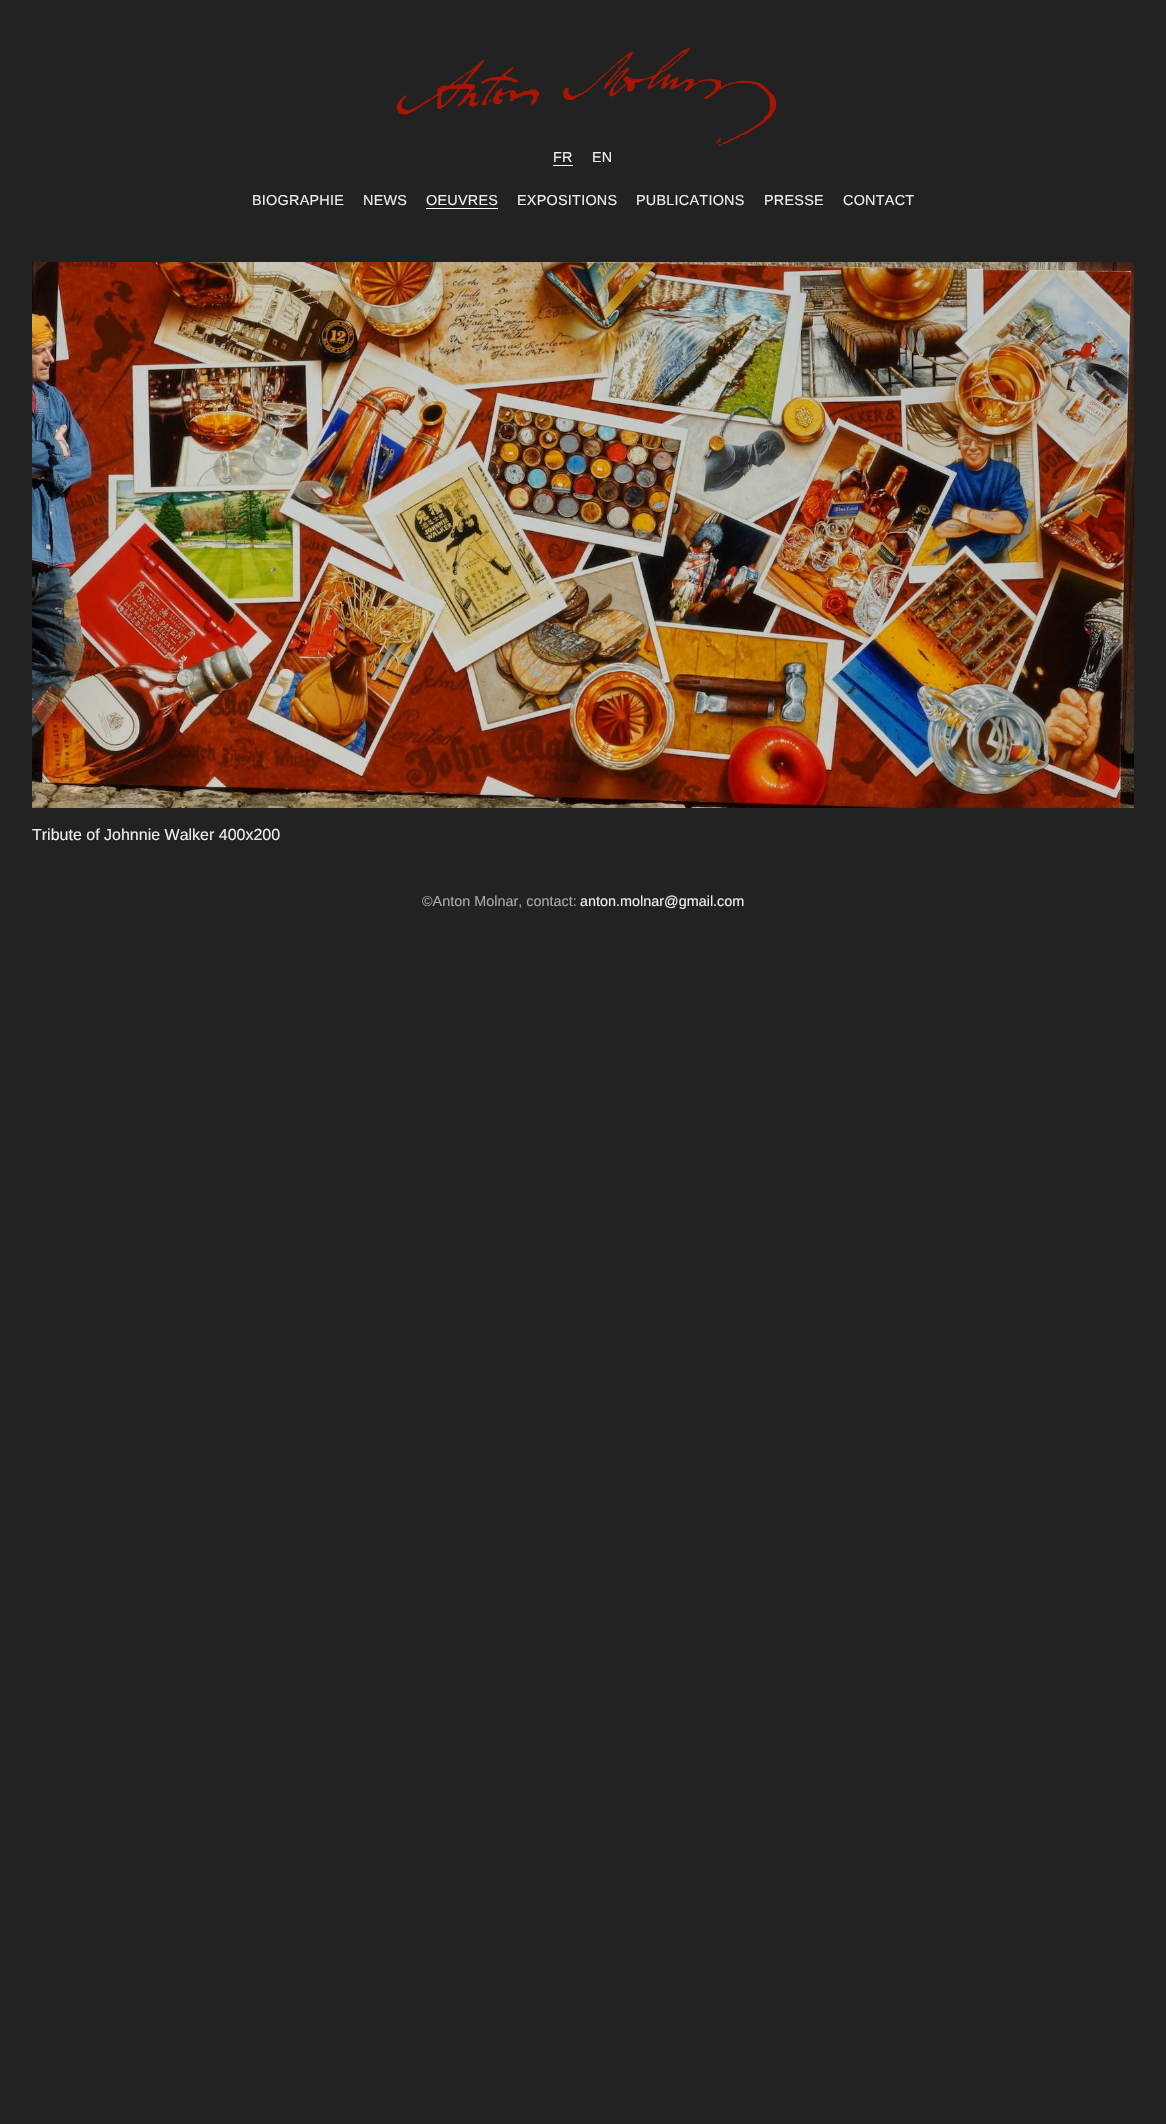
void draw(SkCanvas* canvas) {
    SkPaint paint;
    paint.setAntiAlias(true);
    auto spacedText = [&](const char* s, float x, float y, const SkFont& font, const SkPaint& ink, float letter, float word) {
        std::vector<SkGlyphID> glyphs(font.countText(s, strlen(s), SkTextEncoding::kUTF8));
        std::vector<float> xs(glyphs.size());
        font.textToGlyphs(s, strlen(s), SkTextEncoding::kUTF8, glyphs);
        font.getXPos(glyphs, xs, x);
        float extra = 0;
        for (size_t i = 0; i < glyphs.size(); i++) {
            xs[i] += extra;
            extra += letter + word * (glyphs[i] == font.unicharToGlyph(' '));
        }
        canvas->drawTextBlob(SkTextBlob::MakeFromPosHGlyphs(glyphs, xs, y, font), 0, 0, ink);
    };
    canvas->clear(0xFF222222);
    canvas->drawImageRect(SkImages::DeferredFromEncodedData(SkData::MakeFromFileName("img1.png")), SkRect::MakeXYWH(397, 48, 379, 98), SkSamplingOptions());
    SkFont font1(fontMgr->matchFamilyStyle("Liberation Sans", SkFontStyle::Normal()), 14.4f);
    font1.setSubpixel(true);
    paint.setColor(0xFFEEEEEE);
    spacedText("FR", 553, 162, font1, paint, 0.25f, 0);
    paint.setColor(0xFFFFFFFF);
    canvas->drawRect(SkRect::MakeXYWH(553, 165, 20, 1), paint);
    paint.setColor(0xFFEEEEEE);
    spacedText("EN", 592, 162, font1, paint, 0.25f, 0);
    spacedText("BIOGRAPHIE", 252, 205, font1, paint, 0.25f, 0);
    spacedText("NEWS", 363, 205, font1, paint, 0.25f, 0);
    spacedText("OEUVRES", 426, 205, font1, paint, 0.25f, 0);
    paint.setColor(0xFFFFFFFF);
    canvas->drawRect(SkRect::MakeXYWH(426, 208, 72, 1), paint);
    paint.setColor(0xFFEEEEEE);
    spacedText("EXPOSITIONS", 517, 205, font1, paint, 0.25f, 0);
    spacedText("PUBLICATIONS", 636, 205, font1, paint, 0.25f, 0);
    spacedText("PRESSE", 764, 205, font1, paint, 0.25f, 0);
    spacedText("CONTACT", 843, 205, font1, paint, 0.25f, 0);
    canvas->drawImageRect(SkImages::DeferredFromEncodedData(SkData::MakeFromFileName("img2.png")), SkRect::MakeXYWH(32, 262, 1102, 546), SkSamplingOptions());
    SkFont font2(fontMgr->matchFamilyStyle("Liberation Sans", SkFontStyle::Normal()), 16);
    font2.setSubpixel(true);
    canvas->drawString("Tribute of Johnnie Walker 400x200", 32, 840, font2, paint);
    paint.setColor(0xFFAAAAAA);
    canvas->drawString("©Anton Molnar, contact:", 422, 906, font1, paint);
    paint.setColor(0xFFEEEEEE);
    canvas->drawString("anton.molnar@gmail.com", 580, 906, font1, paint);
}
